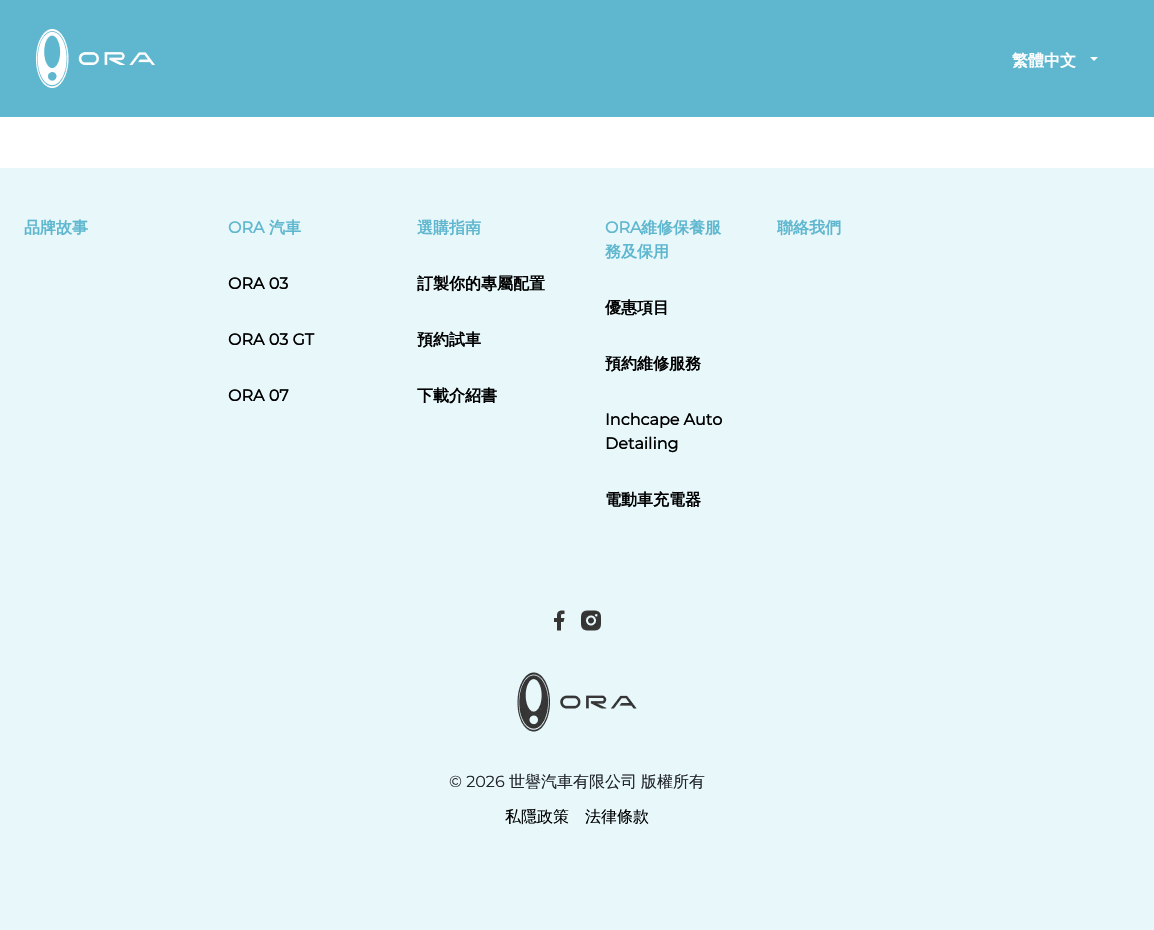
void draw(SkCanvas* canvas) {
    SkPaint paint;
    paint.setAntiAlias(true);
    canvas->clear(0xFFFFFFFF);
    paint.setColor(0xFF5FB7CF);
    canvas->drawRect(SkRect::MakeXYWH(0, 0, 1154, 117), paint);
    canvas->drawImageRect(SkImages::DeferredFromEncodedData(SkData::MakeFromFileName("img1.png")), SkRect::MakeXYWH(36, 29, 119, 59), SkSamplingOptions());
    SkFont font1(fontMgr->matchFamilyStyle("WenQuanYi Zen Hei", SkFontStyle::Bold()), 16);
    font1.setSubpixel(true);
    paint.setColor(0xFFFFFFFF);
    canvas->drawString("繁體中文", 1012, 66, font1, paint);
    canvas->drawPath(SkPathBuilder().moveTo(1090, 57).lineTo(1098, 57).lineTo(1094, 61).close().detach(), paint);
    paint.setColor(0xFFE7F7FA);
    canvas->drawRect(SkRect::MakeXYWH(0, 168, 1154, 762), paint);
    paint.setColor(0xFF5FB7CF);
    canvas->drawString("品牌故事", 24, 233, font1, paint);
    SkFont font2(fontMgr->matchFamilyStyle("Montserrat", SkFontStyle::Bold()), 16);
    font2.setSubpixel(true);
    canvas->drawString("ORA", 228, 233, font2, paint);
    canvas->drawString("汽車", 269, 233, font1, paint);
    paint.setColor(0xFF000000);
    canvas->drawString("ORA 03", 228, 289, font2, paint);
    canvas->drawString("ORA 03 GT", 228, 345, font2, paint);
    canvas->drawString("ORA 07", 228, 401, font2, paint);
    paint.setColor(0xFF5FB7CF);
    canvas->drawString("選購指南", 417, 233, font1, paint);
    paint.setColor(0xFF000000);
    canvas->drawString("訂製你的專屬配置", 417, 289, font1, paint);
    canvas->drawString("預約試車", 417, 345, font1, paint);
    canvas->drawString("下載介紹書", 417, 401, font1, paint);
    paint.setColor(0xFF5FB7CF);
    canvas->drawString("ORA", 605, 233, font2, paint);
    canvas->drawString("維修保養服", 641, 233, font1, paint);
    canvas->drawString("務及保用", 605, 257, font1, paint);
    paint.setColor(0xFF000000);
    canvas->drawString("優惠項目", 605, 313, font1, paint);
    canvas->drawString("預約維修服務", 605, 369, font1, paint);
    canvas->drawString("Inchcape Auto", 605, 425, font2, paint);
    canvas->drawString("Detailing", 605, 449, font2, paint);
    canvas->drawString("電動車充電器", 605, 505, font1, paint);
    paint.setColor(0xFF5FB7CF);
    canvas->drawString("聯絡我們", 777, 233, font1, paint);
    canvas->drawImageRect(SkImages::DeferredFromEncodedData(SkData::MakeFromFileName("img2.png")), SkRect::MakeXYWH(554, 610, 11, 21), SkSamplingOptions());
    canvas->drawImageRect(SkImages::DeferredFromEncodedData(SkData::MakeFromFileName("img3.png")), SkRect::MakeXYWH(581, 610, 20, 21), SkSamplingOptions());
    canvas->drawImageRect(SkImages::DeferredFromEncodedData(SkData::MakeFromFileName("img4.png")), SkRect::MakeXYWH(517, 672, 120, 60), SkSamplingOptions());
    SkFont font3(fontMgr->matchFamilyStyle("Montserrat", SkFontStyle::Normal()), 16);
    font3.setSubpixel(true);
    paint.setColor(0xFF212529);
    canvas->drawString("© 2026", 449, 787, font3, paint);
    SkFont font4(fontMgr->matchFamilyStyle("WenQuanYi Zen Hei", SkFontStyle(500, SkFontStyle::kNormal_Width, SkFontStyle::kUpright_Slant)), 16);
    font4.setSubpixel(true);
    canvas->drawString("世譽汽車有限公司", 509, 787, font4, paint);
    canvas->drawString("版權所有", 641, 787, font4, paint);
    paint.setColor(0xFF000000);
    canvas->drawString("私隱政策", 505, 822, font4, paint);
    canvas->drawString("法律條款", 585, 822, font4, paint);
}
